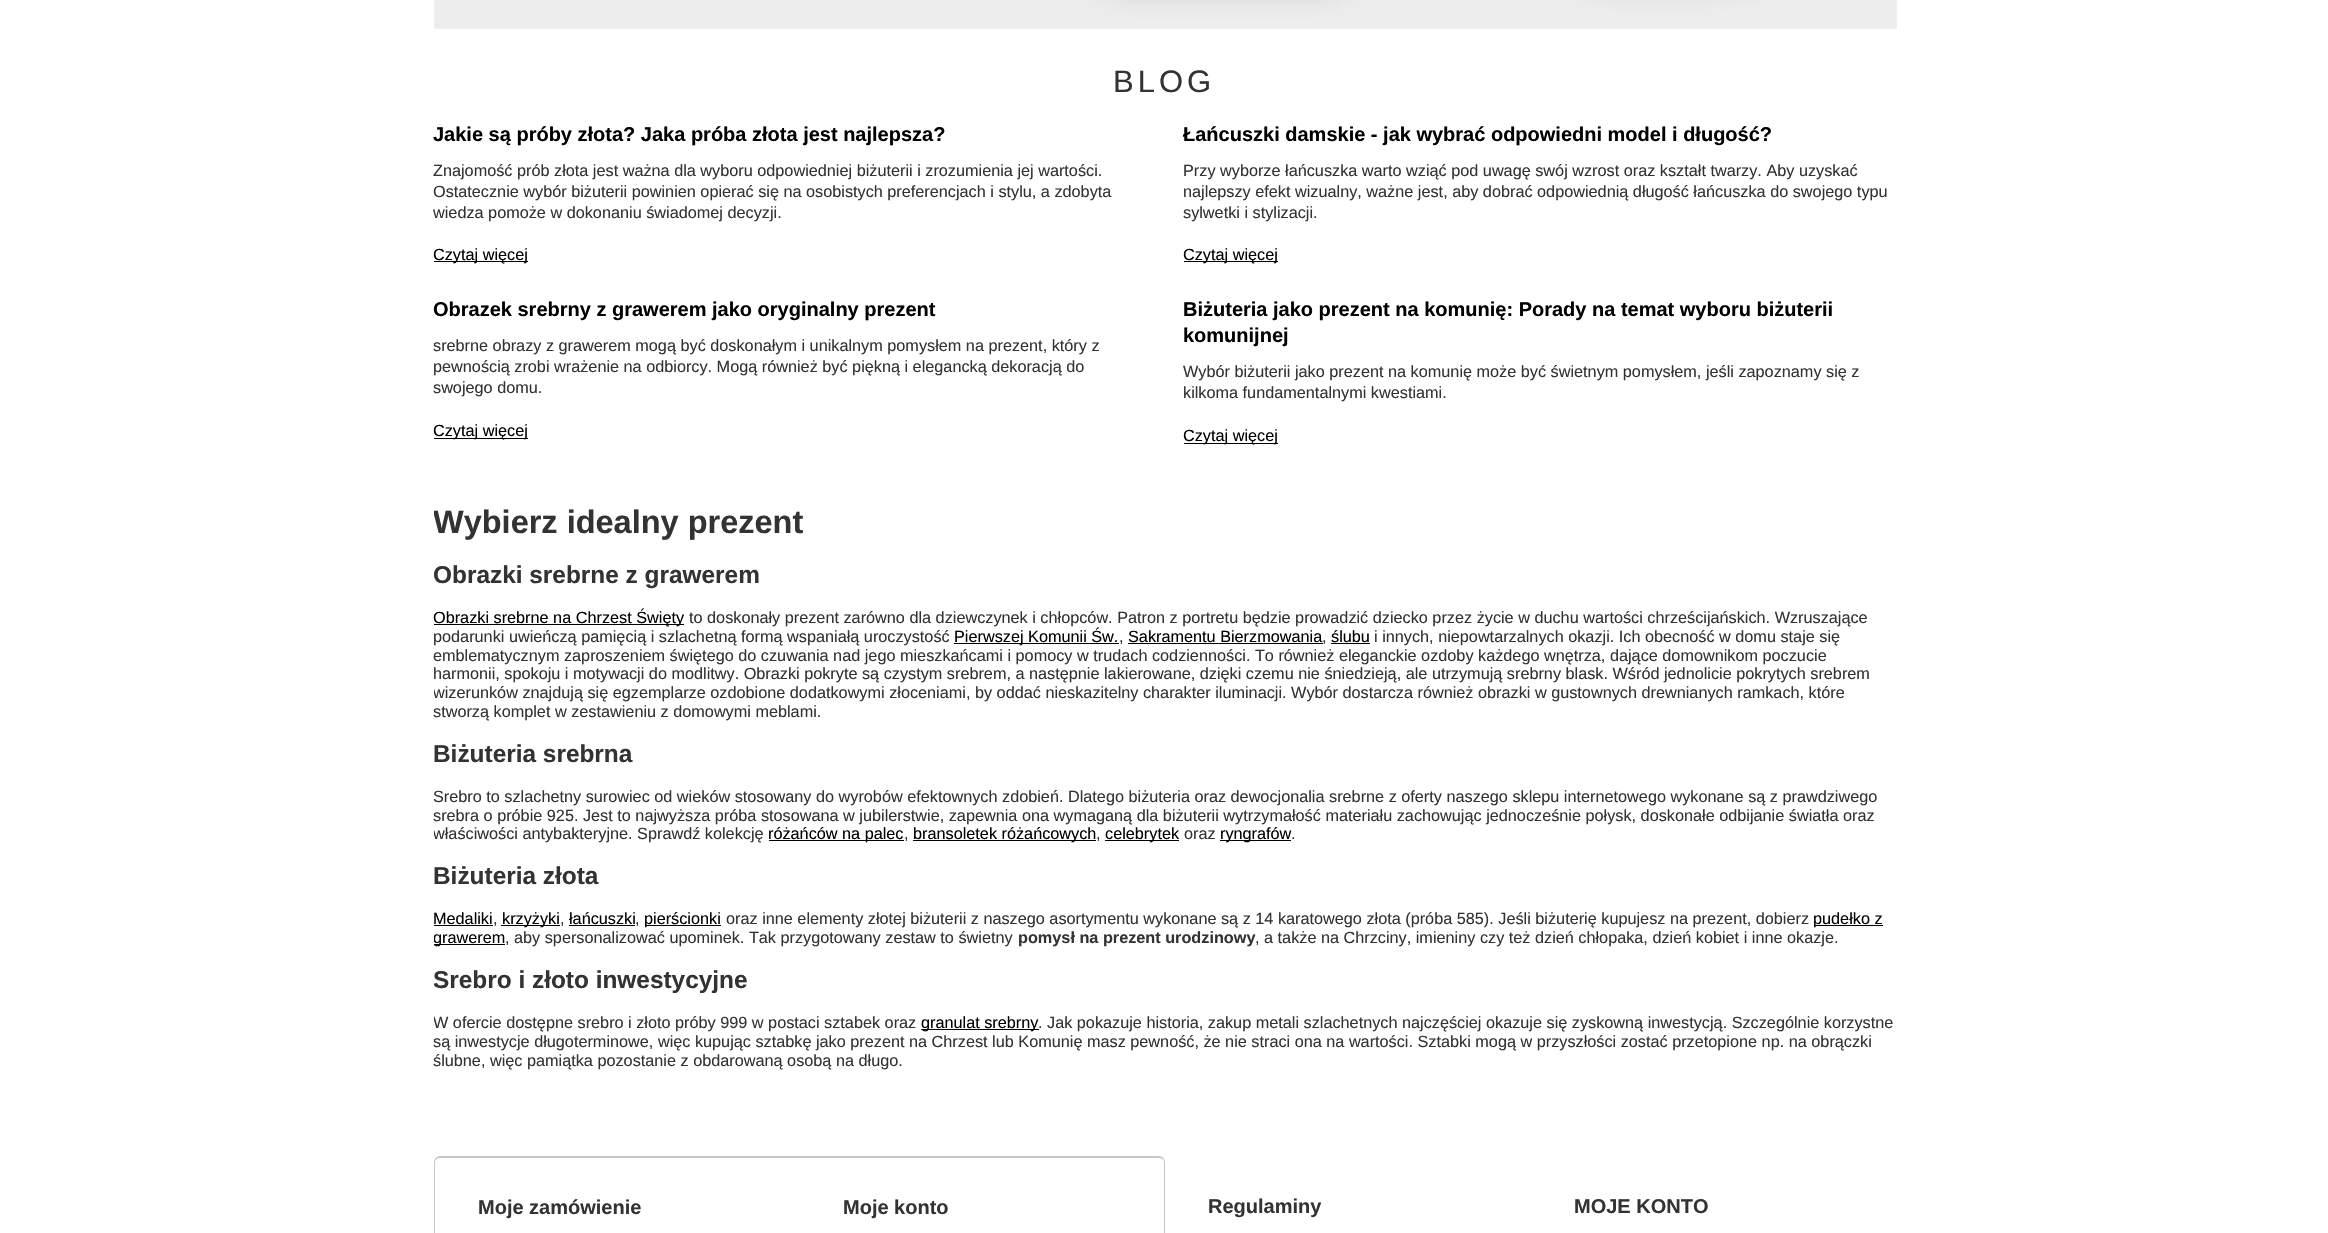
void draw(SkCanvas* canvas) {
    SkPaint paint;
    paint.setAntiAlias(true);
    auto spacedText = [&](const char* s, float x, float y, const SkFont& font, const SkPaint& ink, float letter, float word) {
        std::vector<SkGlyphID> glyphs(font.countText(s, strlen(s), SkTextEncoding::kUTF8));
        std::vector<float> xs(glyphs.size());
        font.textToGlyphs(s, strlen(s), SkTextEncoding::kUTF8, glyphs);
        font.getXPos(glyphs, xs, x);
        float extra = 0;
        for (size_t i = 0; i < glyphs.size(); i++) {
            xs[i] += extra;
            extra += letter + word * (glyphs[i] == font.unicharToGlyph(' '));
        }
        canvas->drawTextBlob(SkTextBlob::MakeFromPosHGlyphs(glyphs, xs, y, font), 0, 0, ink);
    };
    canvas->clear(0xFFFFFFFF);
    canvas->drawImageRect(SkImages::DeferredFromEncodedData(SkData::MakeFromFileName("img1.png")), SkRect::MakeXYWH(434, 0, 1463, 29), SkSamplingOptions());
    SkFont font1(fontMgr->matchFamilyStyle("Liberation Sans", SkFontStyle::Normal()), 31);
    font1.setSubpixel(true);
    paint.setColor(0xFF333333);
    spacedText("BLOG", 1113, 92, font1, paint, 4, 0);
    SkFont font2(fontMgr->matchFamilyStyle("Liberation Sans", SkFontStyle::Bold()), 20);
    font2.setSubpixel(true);
    paint.setColor(0xFF000000);
    canvas->drawString("Jakie są próby złota? Jaka próba złota jest najlepsza?", 433, 141, font2, paint);
    SkFont font3(fontMgr->matchFamilyStyle("Liberation Sans", SkFontStyle::Normal()), 16.25f);
    font3.setSubpixel(true);
    paint.setColor(0xFF333333);
    canvas->drawString("Znajomość prób złota jest ważna dla wyboru odpowiedniej biżuterii i zrozumienia jej wartości.", 433, 176, font3, paint);
    canvas->drawString("Ostatecznie wybór biżuterii powinien opierać się na osobistych preferencjach i stylu, a zdobyta", 433, 197, font3, paint);
    canvas->drawString("wiedza pomoże w dokonaniu świadomej decyzji.", 433, 218, font3, paint);
    paint.setColor(0xFF000000);
    canvas->drawRect(SkRect::MakeXYWH(434, 261, 94, 1), paint);
    canvas->drawString("Czytaj więcej", 433, 260, font3, paint);
    canvas->drawString("Łańcuszki damskie - jak wybrać odpowiedni model i długość?", 1183, 141, font2, paint);
    paint.setColor(0xFF333333);
    canvas->drawString("Przy wyborze łańcuszka warto wziąć pod uwagę swój wzrost oraz kształt twarzy. Aby uzyskać", 1183, 176, font3, paint);
    canvas->drawString("najlepszy efekt wizualny, ważne jest, aby dobrać odpowiednią długość łańcuszka do swojego typu", 1183, 197, font3, paint);
    canvas->drawString("sylwetki i stylizacji.", 1183, 218, font3, paint);
    paint.setColor(0xFF000000);
    canvas->drawRect(SkRect::MakeXYWH(1184, 261, 94, 1), paint);
    canvas->drawString("Czytaj więcej", 1183, 260, font3, paint);
    canvas->drawString("Obrazek srebrny z grawerem jako oryginalny prezent", 433, 316, font2, paint);
    paint.setColor(0xFF333333);
    canvas->drawString("srebrne obrazy z grawerem mogą być doskonałym i unikalnym pomysłem na prezent, który z", 433, 351, font3, paint);
    canvas->drawString("pewnością zrobi wrażenie na odbiorcy. Mogą również być piękną i elegancką dekoracją do", 433, 372, font3, paint);
    canvas->drawString("swojego domu.", 433, 393, font3, paint);
    paint.setColor(0xFF000000);
    canvas->drawRect(SkRect::MakeXYWH(434, 438, 94, 1), paint);
    canvas->drawString("Czytaj więcej", 433, 436, font3, paint);
    canvas->drawString("Biżuteria jako prezent na komunię: Porady na temat wyboru biżuterii", 1183, 316, font2, paint);
    canvas->drawString("komunijnej", 1183, 342, font2, paint);
    paint.setColor(0xFF333333);
    canvas->drawString("Wybór biżuterii jako prezent na komunię może być świetnym pomysłem, jeśli zapoznamy się z", 1183, 377, font3, paint);
    canvas->drawString("kilkoma fundamentalnymi kwestiami.", 1183, 398, font3, paint);
    paint.setColor(0xFF000000);
    canvas->drawRect(SkRect::MakeXYWH(1184, 443, 94, 1), paint);
    canvas->drawString("Czytaj więcej", 1183, 441, font3, paint);
    canvas->save();
    canvas->clipRect(SkRect::MakeXYWH(434, 484, 1462, 604));
    SkFont font4(fontMgr->matchFamilyStyle("Liberation Sans", SkFontStyle::Bold()), 32.5f);
    font4.setSubpixel(true);
    paint.setColor(0xFF333333);
    canvas->drawString("Wybierz idealny prezent", 433, 533, font4, paint);
    canvas->restore();
    SkFont font5(fontMgr->matchFamilyStyle("Liberation Sans", SkFontStyle::Bold()), 24.4f);
    font5.setSubpixel(true);
    canvas->drawString("Obrazki srebrne z grawerem", 433, 583, font5, paint);
    paint.setColor(0xFF000000);
    canvas->drawRect(SkRect::MakeXYWH(434, 624, 250, 1), paint);
    canvas->drawString("Obrazki srebrne na Chrzest Święty", 433, 623, font3, paint);
    paint.setColor(0xFF333333);
    canvas->drawString("to doskonały prezent zarówno dla dziewczynek i chłopców. Patron z portretu będzie prowadzić dziecko przez życie w duchu wartości chrześcijańskich. Wzruszające", 689, 623, font3, paint);
    canvas->drawString("podarunki uwieńczą pamięcią i szlachetną formą wspaniałą uroczystość", 433, 642, font3, paint);
    paint.setColor(0xFF000000);
    canvas->drawRect(SkRect::MakeXYWH(954, 643, 165, 1), paint);
    canvas->drawString("Pierwszej Komunii Św.", 954, 642, font3, paint);
    paint.setColor(0xFF333333);
    canvas->drawString(",", 1119, 642, font3, paint);
    paint.setColor(0xFF000000);
    canvas->drawString("Sakramentu Bierzmowania", 1128, 642, font3, paint);
    canvas->drawRect(SkRect::MakeXYWH(1128, 643, 195, 1), paint);
    paint.setColor(0xFF333333);
    canvas->drawString(",", 1322, 642, font3, paint);
    paint.setColor(0xFF000000);
    canvas->drawString("ślubu", 1331, 642, font3, paint);
    canvas->drawRect(SkRect::MakeXYWH(1331, 643, 39, 1), paint);
    paint.setColor(0xFF333333);
    canvas->drawString("i innych, niepowtarzalnych okazji. Ich obecność w domu staje się", 1374, 642, font3, paint);
    canvas->drawString("emblematycznym zaproszeniem świętego do czuwania nad jego mieszkańcami i pomocy w trudach codzienności. To również eleganckie ozdoby każdego wnętrza, dające domownikom poczucie", 433, 661, font3, paint);
    canvas->drawString("harmonii, spokoju i motywacji do modlitwy. Obrazki pokryte są czystym srebrem, a następnie lakierowane, dzięki czemu nie śniedzieją, ale utrzymują srebrny blask. Wśród jednolicie pokrytych srebrem", 433, 679, font3, paint);
    canvas->save();
    canvas->clipRect(SkRect::MakeXYWH(434, 484, 1462, 604));
    canvas->drawString("wizerunków znajdują się egzemplarze ozdobione dodatkowymi złoceniami, by oddać nieskazitelny charakter iluminacji. Wybór dostarcza również obrazki w gustownych drewnianych ramkach, które", 433, 698, font3, paint);
    canvas->restore();
    canvas->drawString("stworzą komplet w zestawieniu z domowymi meblami.", 433, 717, font3, paint);
    canvas->drawString("Biżuteria srebrna", 433, 762, font5, paint);
    canvas->drawString("Srebro to szlachetny surowiec od wieków stosowany do wyrobów efektownych zdobień. Dlatego biżuteria oraz dewocjonalia srebrne z oferty naszego sklepu internetowego wykonane są z prawdziwego", 433, 802, font3, paint);
    canvas->drawString("srebra o próbie 925. Jest to najwyższa próba stosowana w jubilerstwie, zapewnia ona wymaganą dla biżuterii wytrzymałość materiału zachowując jednocześnie połysk, doskonałe odbijanie światła oraz", 433, 821, font3, paint);
    canvas->save();
    canvas->clipRect(SkRect::MakeXYWH(434, 484, 1462, 604));
    canvas->drawString("właściwości antybakteryjne. Sprawdź kolekcję", 433, 839, font3, paint);
    canvas->restore();
    paint.setColor(0xFF000000);
    canvas->drawRect(SkRect::MakeXYWH(769, 840, 135, 1), paint);
    canvas->drawString("różańców na palec", 768, 839, font3, paint);
    paint.setColor(0xFF333333);
    canvas->drawString(",", 904, 839, font3, paint);
    paint.setColor(0xFF000000);
    canvas->drawRect(SkRect::MakeXYWH(913, 840, 183, 1), paint);
    canvas->drawString("bransoletek różańcowych", 913, 839, font3, paint);
    paint.setColor(0xFF333333);
    canvas->drawString(",", 1096, 839, font3, paint);
    paint.setColor(0xFF000000);
    canvas->drawRect(SkRect::MakeXYWH(1105, 840, 74, 1), paint);
    canvas->drawString("celebrytek", 1105, 839, font3, paint);
    paint.setColor(0xFF333333);
    canvas->drawString("oraz", 1184, 839, font3, paint);
    paint.setColor(0xFF000000);
    canvas->drawRect(SkRect::MakeXYWH(1220, 840, 71, 1), paint);
    canvas->drawString("ryngrafów", 1220, 839, font3, paint);
    paint.setColor(0xFF333333);
    canvas->drawString(".", 1291, 839, font3, paint);
    canvas->drawString("Biżuteria złota", 433, 884, font5, paint);
    paint.setColor(0xFF000000);
    canvas->drawString("Medaliki", 433, 924, font3, paint);
    canvas->drawRect(SkRect::MakeXYWH(434, 925, 59, 1), paint);
    paint.setColor(0xFF333333);
    canvas->drawString(",", 493, 924, font3, paint);
    paint.setColor(0xFF000000);
    canvas->drawRect(SkRect::MakeXYWH(501, 925, 59, 1), paint);
    canvas->drawString("krzyżyki", 502, 924, font3, paint);
    paint.setColor(0xFF333333);
    canvas->drawString(",", 560, 924, font3, paint);
    paint.setColor(0xFF000000);
    canvas->drawString("łańcuszki", 569, 924, font3, paint);
    canvas->drawRect(SkRect::MakeXYWH(569, 925, 66, 1), paint);
    paint.setColor(0xFF333333);
    canvas->drawString(",", 635, 924, font3, paint);
    paint.setColor(0xFF000000);
    canvas->drawRect(SkRect::MakeXYWH(645, 925, 76, 1), paint);
    canvas->drawString("pierścionki", 644, 924, font3, paint);
    paint.setColor(0xFF333333);
    canvas->drawString("oraz inne elementy złotej biżuterii z naszego asortymentu wykonane są z 14 karatowego złota (próba 585). Jeśli biżuterię kupujesz na prezent, dobierz", 726, 924, font3, paint);
    paint.setColor(0xFF000000);
    canvas->drawRect(SkRect::MakeXYWH(1814, 925, 69, 1), paint);
    canvas->drawString("pudełko z", 1813, 924, font3, paint);
    canvas->drawRect(SkRect::MakeXYWH(434, 944, 71, 1), paint);
    canvas->save();
    canvas->clipRect(SkRect::MakeXYWH(434, 484, 1462, 604));
    canvas->drawString("grawerem", 433, 943, font3, paint);
    canvas->restore();
    paint.setColor(0xFF333333);
    canvas->drawString(", aby spersonalizować upominek. Tak przygotowany zestaw to świetny", 505, 943, font3, paint);
    SkFont font6(fontMgr->matchFamilyStyle("Liberation Sans", SkFontStyle::Bold()), 16.25f);
    font6.setSubpixel(true);
    canvas->drawString("pomysł na prezent urodzinowy", 1018, 943, font6, paint);
    canvas->drawString(", a także na Chrzciny, imieniny czy też dzień chłopaka, dzień kobiet i inne okazje.", 1255, 943, font3, paint);
    canvas->drawString("Srebro i złoto inwestycyjne", 433, 988, font5, paint);
    canvas->save();
    canvas->clipRect(SkRect::MakeXYWH(434, 484, 1462, 604));
    canvas->drawString("W ofercie dostępne srebro i złoto próby 999 w postaci sztabek oraz", 433, 1028, font3, paint);
    canvas->restore();
    paint.setColor(0xFF000000);
    canvas->drawRect(SkRect::MakeXYWH(921, 1029, 118, 1), paint);
    canvas->drawString("granulat srebrny", 921, 1028, font3, paint);
    paint.setColor(0xFF333333);
    canvas->drawString(". Jak pokazuje historia, zakup metali szlachetnych najczęściej okazuje się zyskowną inwestycją. Szczególnie korzystne", 1038, 1028, font3, paint);
    canvas->drawString("są inwestycje długoterminowe, więc kupując sztabkę jako prezent na Chrzest lub Komunię masz pewność, że nie straci ona na wartości. Sztabki mogą w przyszłości zostać przetopione np. na obrączki", 433, 1047, font3, paint);
    canvas->drawString("ślubne, więc pamiątka pozostanie z obdarowaną osobą na długo.", 433, 1066, font3, paint);
    paint.setColor(0xFFC4C7C8);
    canvas->drawPath(SkPathBuilder(SkPathFillType::kEvenOdd).moveTo(440, 1156).lineTo(799, 1156).lineTo(799, 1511).lineTo(440, 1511).cubicTo(437, 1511, 434, 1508, 434, 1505).lineTo(434, 1162).cubicTo(434, 1159, 437, 1156, 440, 1156).close().moveTo(440, 1158).lineTo(799, 1158).lineTo(799, 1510).lineTo(440, 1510).cubicTo(437, 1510, 435, 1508, 435, 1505).lineTo(435, 1162).cubicTo(435, 1160, 437, 1158, 440, 1158).close().detach(), paint);
    paint.setColor(0xFF333333);
    canvas->drawString("Moje zamówienie", 478, 1214, font2, paint);
    paint.setColor(0xFFC4C7C8);
    canvas->drawPath(SkPathBuilder(SkPathFillType::kEvenOdd).moveTo(799, 1156).lineTo(1159, 1156).cubicTo(1162, 1156, 1165, 1159, 1165, 1162).lineTo(1165, 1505).cubicTo(1165, 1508, 1162, 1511, 1159, 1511).lineTo(799, 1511).close().moveTo(799, 1158).lineTo(1159, 1158).cubicTo(1162, 1158, 1164, 1160, 1164, 1162).lineTo(1164, 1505).cubicTo(1164, 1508, 1162, 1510, 1159, 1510).lineTo(799, 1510).close().detach(), paint);
    paint.setColor(0xFF333333);
    canvas->drawString("Moje konto", 843, 1214, font2, paint);
    canvas->drawString("Regulaminy", 1208, 1213, font2, paint);
    canvas->drawString("MOJE KONTO", 1574, 1213, font2, paint);
}
